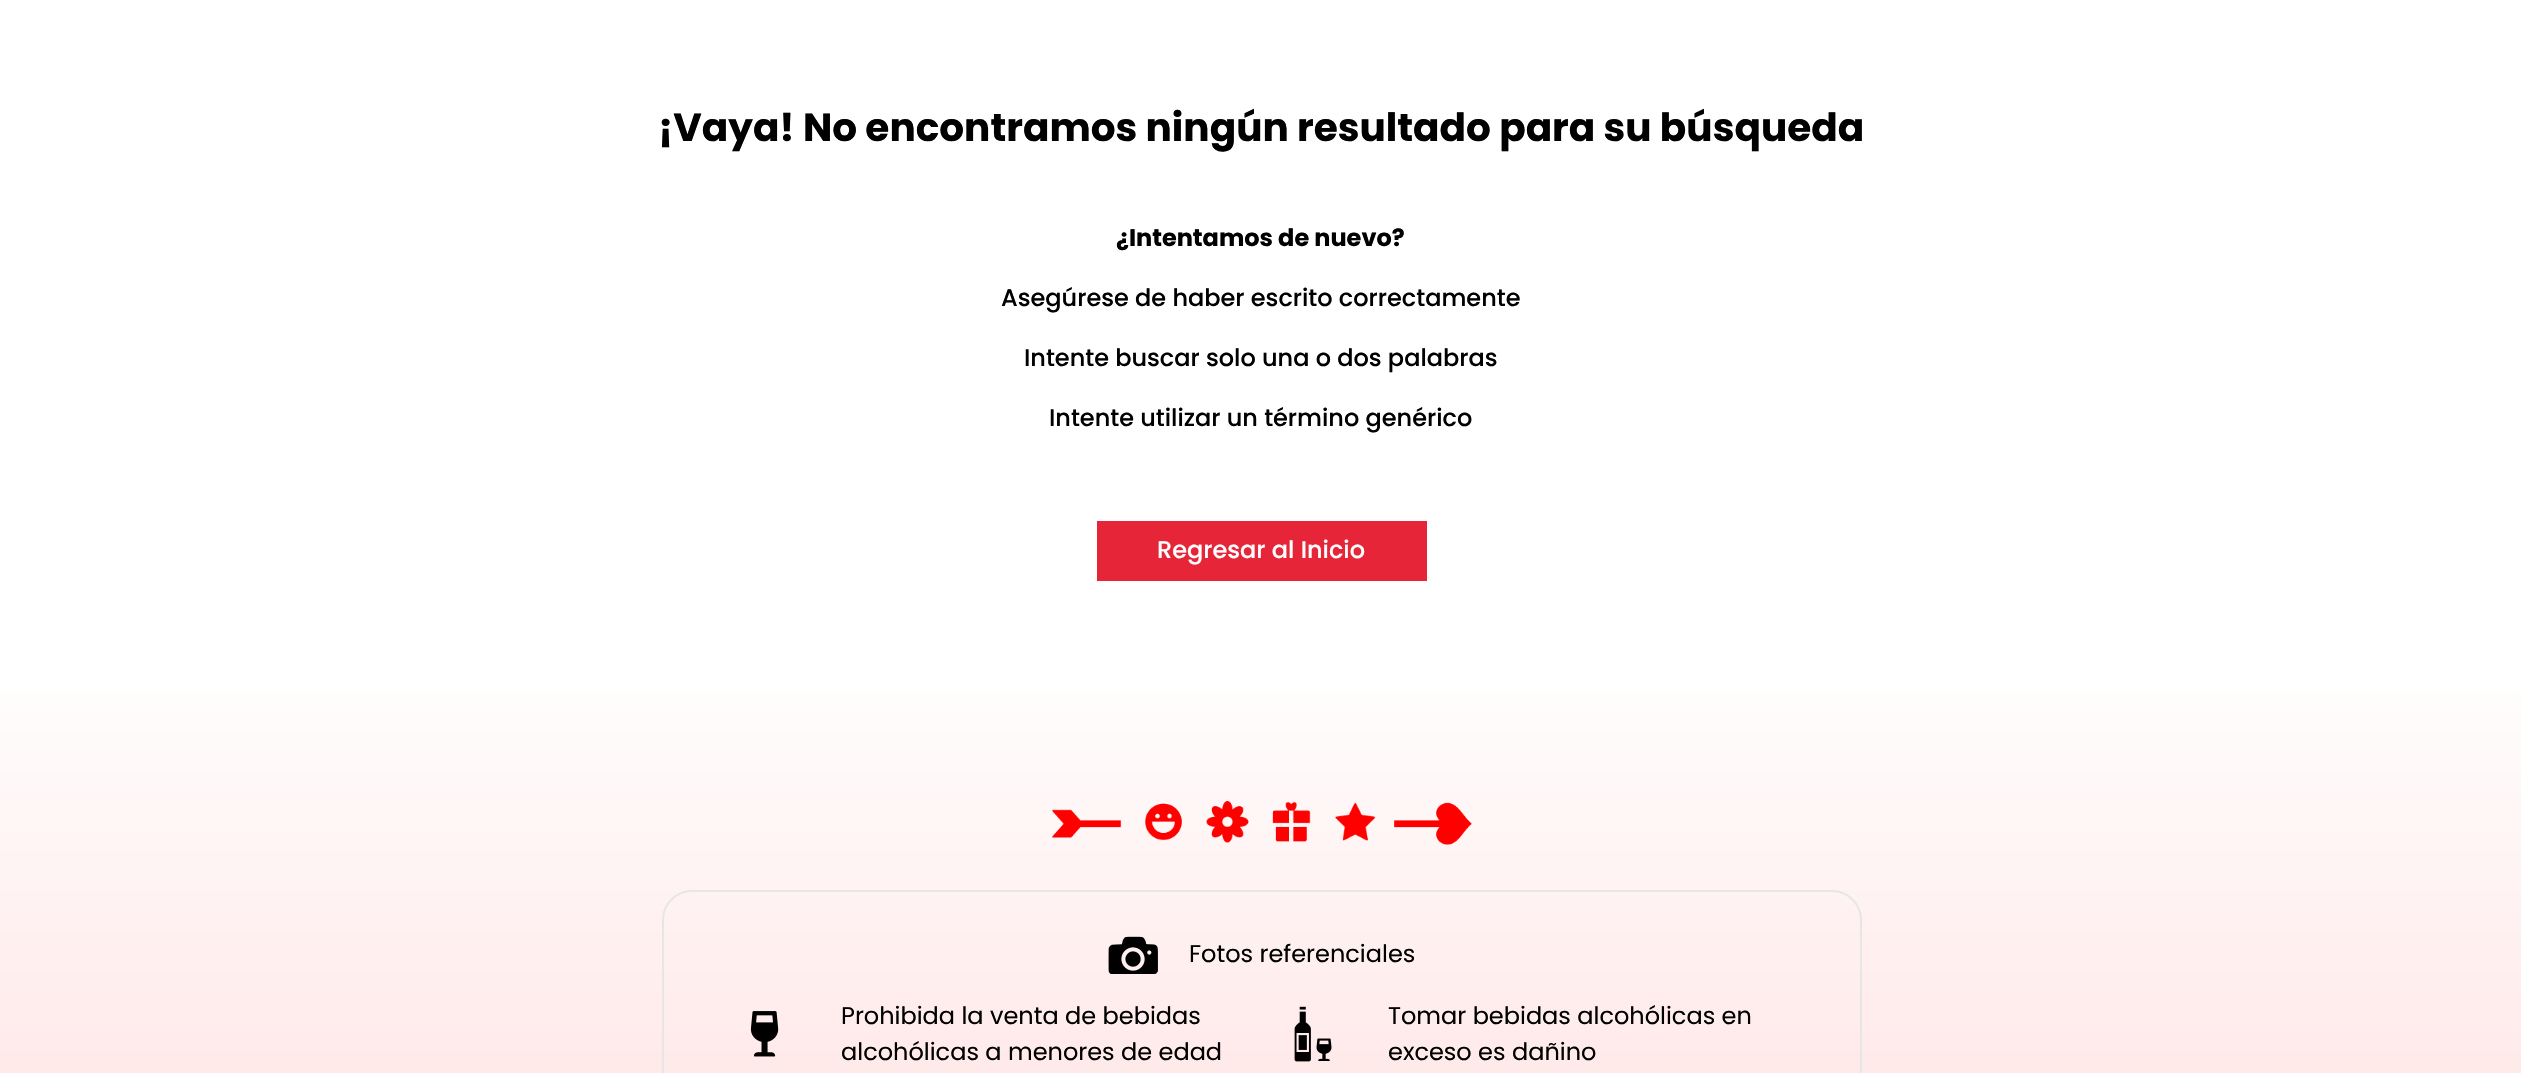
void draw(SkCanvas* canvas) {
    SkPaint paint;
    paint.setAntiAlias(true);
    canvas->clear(0xFFFFFFFF);
    SkFont font1(fontMgr->matchFamilyStyle("Poppins", SkFontStyle::Bold()), 39);
    font1.setSubpixel(true);
    paint.setColor(0xFF000000);
    canvas->drawString("¡Vaya! No encontramos ningún resultado para su búsqueda", 658, 141, font1, paint);
    SkFont font2(fontMgr->matchFamilyStyle("Poppins", SkFontStyle::Bold()), 24);
    font2.setSubpixel(true);
    canvas->drawString("¿Intentamos de nuevo?", 1116, 246, font2, paint);
    SkFont font3(fontMgr->matchFamilyStyle("Poppins", SkFontStyle(500, SkFontStyle::kNormal_Width, SkFontStyle::kUpright_Slant)), 24);
    font3.setSubpixel(true);
    canvas->drawString("Asegúrese de haber escrito correctamente", 1001, 306, font3, paint);
    canvas->drawString("Intente buscar solo una o dos palabras", 1024, 366, font3, paint);
    canvas->drawString("Intente utilizar un término genérico", 1049, 426, font3, paint);
    paint.setColor(0xFFE62638);
    canvas->drawRect(SkRect::MakeXYWH(1097, 521, 330, 60), paint);
    paint.setColor(0xFFFFFFFF);
    canvas->drawString("Regresar al Inicio", 1157, 558, font3, paint);
    {
        const SkColor colors[] = {0xFFFFE5E5, 0xFFFFFFFF};
        const float stops[] = {0, 1};
        const SkPoint ends[] = {{1261, 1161}, {1261, 641}};
        paint.setShader(SkGradientShader::MakeLinear(ends, colors, stops, 2, SkTileMode::kClamp));
        paint.setAlpha(255);
    }
    canvas->drawRect(SkRect::MakeXYWH(0, 691, 2521, 382), paint);
    canvas->drawImageRect(SkImages::DeferredFromEncodedData(SkData::MakeFromFileName("img1.png")), SkRect::MakeXYWH(1052, 801, 420, 44), SkSamplingOptions());
    paint.setStyle(SkPaint::kStroke_Style);
    paint.setStrokeWidth(2);
    paint.setShader(nullptr);
    paint.setColor(0xFFE6E6E6);
    canvas->drawRoundRect(SkRect::MakeXYWH(663, 891, 1198, 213), 29, 29, paint);
    canvas->drawImageRect(SkImages::DeferredFromEncodedData(SkData::MakeFromFileName("img2.png")), SkRect::MakeXYWH(1108, 936, 50, 38), SkSamplingOptions());
    SkFont font4(fontMgr->matchFamilyStyle("Poppins", SkFontStyle::Normal()), 24);
    font4.setSubpixel(true);
    paint.setStyle(SkPaint::kFill_Style);
    paint.setColor(0xFF000000);
    canvas->drawString("Fotos referenciales", 1189, 962, font4, paint);
    canvas->drawImageRect(SkImages::DeferredFromEncodedData(SkData::MakeFromFileName("img3.png")), SkRect::MakeXYWH(750, 1011, 29, 46), SkSamplingOptions());
    canvas->drawString("Prohibida la venta de bebidas", 841, 1024, font4, paint);
    canvas->drawString("alcohólicas a menores de edad", 841, 1060, font4, paint);
    canvas->drawImageRect(SkImages::DeferredFromEncodedData(SkData::MakeFromFileName("img4.png")), SkRect::MakeXYWH(1294, 1006, 38, 56), SkSamplingOptions());
    canvas->drawString("Tomar bebidas alcohólicas en", 1388, 1024, font4, paint);
    canvas->drawString("exceso es dañino", 1388, 1060, font4, paint);
}
